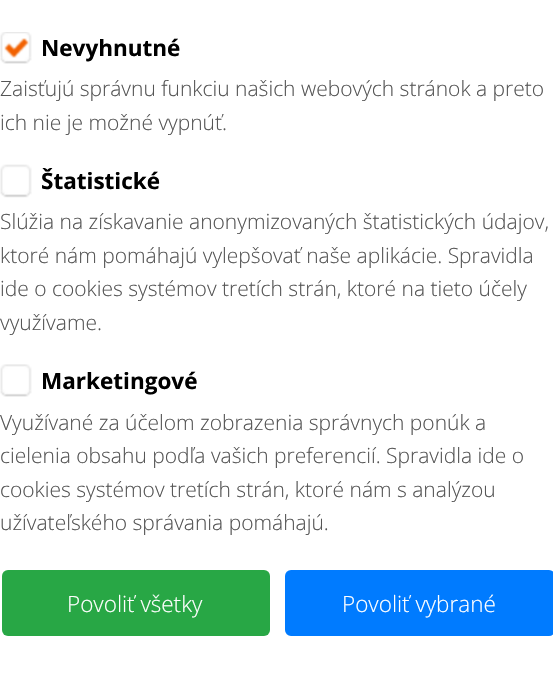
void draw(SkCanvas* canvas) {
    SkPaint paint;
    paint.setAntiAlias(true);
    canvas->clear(0xFFFFFFFF);
    canvas->drawImageRect(SkImages::DeferredFromEncodedData(SkData::MakeFromFileName("img1.png")), SkRect::MakeXYWH(0, 32, 32, 32), SkSamplingOptions());
    SkFont font1(fontMgr->matchFamilyStyle("Open Sans", SkFontStyle::Bold()), 22.5f);
    font1.setSubpixel(true);
    paint.setColor(0xFF000000);
    canvas->drawString("Nevyhnutné", 41, 56, font1, paint);
    SkFont font2(fontMgr->matchFamilyStyle("Open Sans", SkFontStyle(300, SkFontStyle::kNormal_Width, SkFontStyle::kUpright_Slant)), 21);
    font2.setSubpixel(true);
    paint.setColor(0xFF555555);
    canvas->drawString("Zaisťujú správnu funkciu našich webových stránok a preto", 0, 96, font2, paint);
    canvas->drawString("ich nie je možné vypnúť.", 0, 130, font2, paint);
    canvas->drawImageRect(SkImages::DeferredFromEncodedData(SkData::MakeFromFileName("img2.png")), SkRect::MakeXYWH(0, 164, 32, 34), SkSamplingOptions());
    paint.setColor(0xFF000000);
    canvas->drawString("Štatistické", 41, 189, font1, paint);
    paint.setColor(0xFF555555);
    canvas->drawString("Slúžia na získavanie anonymizovaných štatistických údajov,", 0, 229, font2, paint);
    canvas->drawString("ktoré nám pomáhajú vylepšovať naše aplikácie. Spravidla", 0, 263, font2, paint);
    canvas->drawString("ide o cookies systémov tretích strán, ktoré na tieto účely", 0, 296, font2, paint);
    canvas->drawString("využívame.", 0, 330, font2, paint);
    canvas->drawImageRect(SkImages::DeferredFromEncodedData(SkData::MakeFromFileName("img3.png")), SkRect::MakeXYWH(0, 364, 32, 33), SkSamplingOptions());
    paint.setColor(0xFF000000);
    canvas->drawString("Marketingové", 41, 389, font1, paint);
    paint.setColor(0xFF555555);
    canvas->drawString("Využívané za účelom zobrazenia správnych ponúk a", 0, 430, font2, paint);
    canvas->drawString("cielenia obsahu podľa vašich preferencií. Spravidla ide o", 0, 463, font2, paint);
    canvas->drawString("cookies systémov tretích strán, ktoré nám s analýzou", 0, 497, font2, paint);
    canvas->drawString("užívateľského správania pomáhajú.", 0, 530, font2, paint);
    paint.setColor(0xFF28A745);
    canvas->drawRoundRect(SkRect::MakeXYWH(2, 570, 268, 66), 6, 6, paint);
    SkFont font3(fontMgr->matchFamilyStyle("Open Sans", SkFontStyle(300, SkFontStyle::kNormal_Width, SkFontStyle::kUpright_Slant)), 22.5f);
    font3.setSubpixel(true);
    paint.setColor(0xFFFFFFFF);
    canvas->drawString("Povoliť všetky", 67, 612, font3, paint);
    paint.setColor(0xFF007BFF);
    canvas->drawRoundRect(SkRect::MakeXYWH(285, 570, 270, 66), 6, 6, paint);
    paint.setColor(0xFFFFFFFF);
    canvas->drawString("Povoliť vybrané", 342, 612, font3, paint);
}
